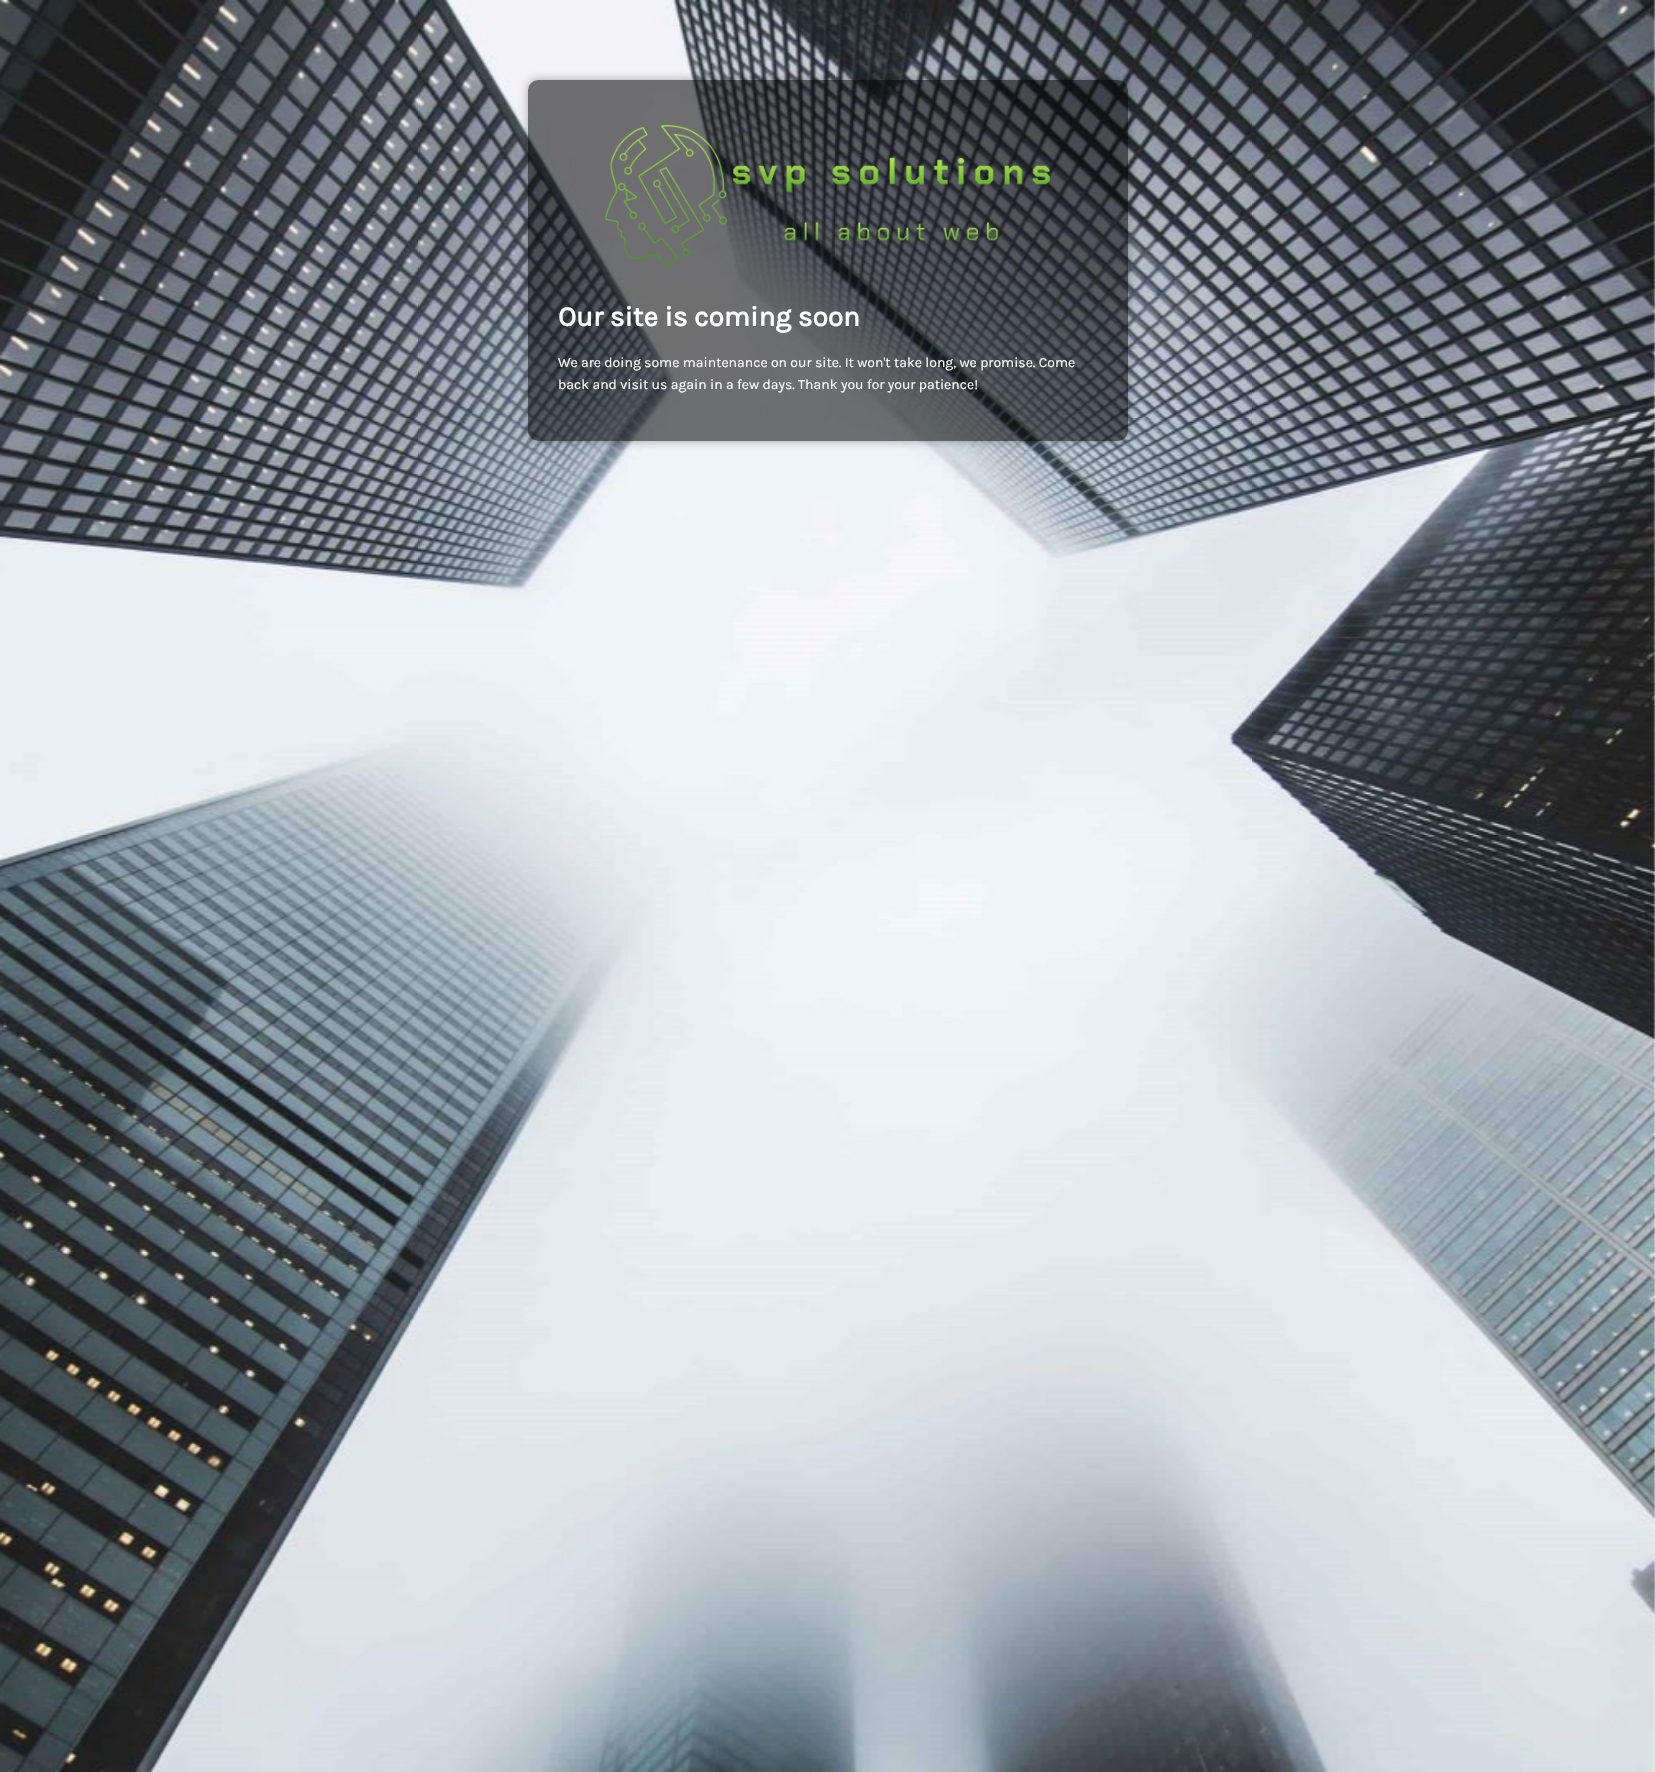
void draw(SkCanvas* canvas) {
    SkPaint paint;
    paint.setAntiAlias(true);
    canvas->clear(0xFFFFFFFF);
    canvas->drawImageRect(SkImages::DeferredFromEncodedData(SkData::MakeFromFileName("img1.png")), SkRect::MakeXYWH(0, 0, 1655, 1772), SkSamplingOptions());
    canvas->save();
    canvas->clipPath(SkPathBuilder(SkPathFillType::kEvenOdd).moveTo(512, 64).lineTo(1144, 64).lineTo(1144, 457).lineTo(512, 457).close().moveTo(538, 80).lineTo(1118, 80).cubicTo(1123.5f, 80, 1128, 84.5f, 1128, 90).lineTo(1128, 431).cubicTo(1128, 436.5f, 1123.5f, 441, 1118, 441).lineTo(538, 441).cubicTo(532.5f, 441, 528, 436.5f, 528, 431).lineTo(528, 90).cubicTo(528, 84.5f, 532.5f, 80, 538, 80).close().detach(), true);
    paint.setColor(0x54000000);
    paint.setMaskFilter(SkMaskFilter::MakeBlur(kNormal_SkBlurStyle, 5));
    canvas->drawRoundRect(SkRect::MakeXYWH(528, 80, 600, 361), 10, 10, paint);
    paint.setMaskFilter(nullptr);
    canvas->restore();
    paint.setColor(0x8C000000);
    canvas->drawRoundRect(SkRect::MakeXYWH(528, 80, 600, 361), 10, 10, paint);
    canvas->drawImageRect(SkImages::DeferredFromEncodedData(SkData::MakeFromFileName("img2.png")), SkRect::MakeXYWH(605, 125, 445, 142), SkSamplingOptions());
    SkFont font1(fontMgr->matchFamilyStyle("Karla", SkFontStyle::Bold()), 28);
    font1.setSubpixel(true);
    paint.setColor(0xFFFFFFFF);
    canvas->drawString("Our site is coming soon", 558, 326, font1, paint);
    SkFont font2(fontMgr->matchFamilyStyle("Karla", SkFontStyle::Normal()), 14);
    font2.setSubpixel(true);
    canvas->drawString("We are doing some maintenance on our site. It won't take long, we promise. Come", 558, 367, font2, paint);
    canvas->drawString("back and visit us again in a few days. Thank you for your patience!", 558, 389, font2, paint);
}
